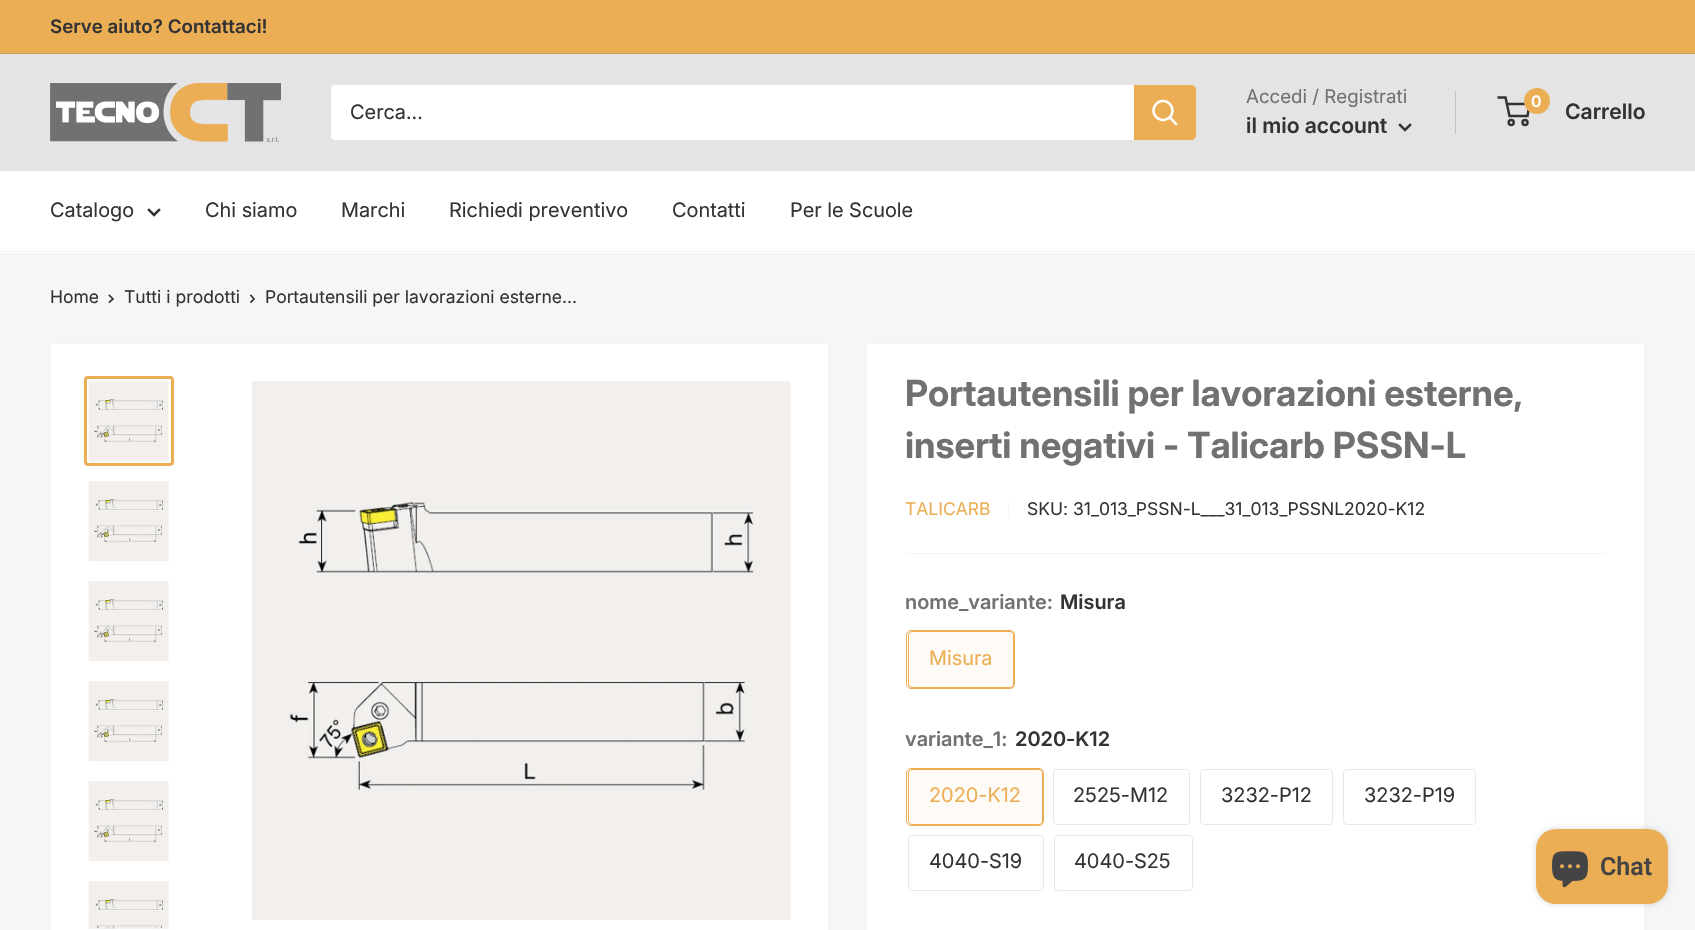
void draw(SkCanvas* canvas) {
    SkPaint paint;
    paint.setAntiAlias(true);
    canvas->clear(0xFFF4F6F7);
    paint.setColor(0xFFEBAE55);
    canvas->drawRect(SkRect::MakeXYWH(0, 0, 1695, 53), paint);
    paint.setColor(0xFFC69C5E);
    canvas->drawRect(SkRect::MakeXYWH(0, 53, 1695, 1), paint);
    SkFont font1(fontMgr->matchFamilyStyle("Inter", SkFontStyle(600, SkFontStyle::kNormal_Width, SkFontStyle::kUpright_Slant)), 18.75f);
    font1.setSubpixel(true);
    paint.setColor(0xFF333333);
    canvas->drawString("Serve aiuto? Contattaci!", 50, 33, font1, paint);
    paint.setColor(0xFFE4E4E4);
    canvas->drawRect(SkRect::MakeXYWH(0, 54, 1695, 117), paint);
    canvas->drawImageRect(SkImages::DeferredFromEncodedData(SkData::MakeFromFileName("img1.png")), SkRect::MakeXYWH(50, 83, 231, 59), SkSamplingOptions());
    paint.setColor(0xFFFFFFFF);
    canvas->drawRoundRect(SkRect::MakeXYWH(331, 85, 865, 55), 4, 4, paint);
    SkFont font2(fontMgr->matchFamilyStyle("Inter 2", SkFontStyle::Normal()), 20);
    font2.setSubpixel(true);
    paint.setColor(0xFF333333);
    canvas->drawString("Cerca...", 350, 119, font2, paint);
    paint.setColor(0xFFEBAE55);
    canvas->drawPath(SkPathBuilder().moveTo(1134, 85).lineTo(1192, 85).cubicTo(1194, 85, 1196, 87, 1196, 89).lineTo(1196, 136).cubicTo(1196, 138, 1194, 140, 1192, 140).lineTo(1134, 140).close().detach(), paint);
    paint.setStyle(SkPaint::kStroke_Style);
    paint.setStrokeWidth(2.5f);
    paint.setStrokeCap(SkPaint::kSquare_Cap);
    paint.setColor(0xFFFFFFFF);
    canvas->drawPath(SkPathBuilder().moveTo(1176, 124).lineTo(1170, 117.5f).detach(), paint);
    paint.setStrokeCap(SkPaint::kButt_Cap);
    canvas->drawCircle(1163, 110.5f, 9.5f, paint);
    SkFont font3(fontMgr->matchFamilyStyle("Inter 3", SkFontStyle::Normal()), 18.75f);
    font3.setSubpixel(true);
    paint.setStyle(SkPaint::kFill_Style);
    paint.setColor(0xFF707173);
    canvas->drawString("Accedi / Registrati", 1246, 103, font3, paint);
    paint.setColor(0xFFC1C2C2);
    canvas->drawRect(SkRect::MakeXYWH(1455, 91, 1, 43), paint);
    SkFont font4(fontMgr->matchFamilyStyle("Inter 3", SkFontStyle(600, SkFontStyle::kNormal_Width, SkFontStyle::kUpright_Slant)), 21.25f);
    font4.setSubpixel(true);
    paint.setColor(0xFF333333);
    canvas->drawString("il mio account", 1246, 133, font4, paint);
    paint.setStyle(SkPaint::kStroke_Style);
    paint.setStrokeCap(SkPaint::kSquare_Cap);
    canvas->drawPath(SkPathBuilder().moveTo(1410, 125).lineTo(1405, 130).lineTo(1400, 125).detach(), paint);
    paint.setStrokeCap(SkPaint::kButt_Cap);
    canvas->drawCircle(1511.2f, 122.5f, 2.5f, paint);
    canvas->drawCircle(1525, 122.5f, 2.5f, paint);
    canvas->drawPath(SkPathBuilder().moveTo(1506.5f, 104).lineTo(1529.5f, 104).lineTo(1527.5f, 116).lineTo(1509.5f, 116).lineTo(1505.5f, 97.5f).lineTo(1497.5f, 97.5f).detach(), paint);
    paint.setStyle(SkPaint::kFill_Style);
    paint.setColor(0xFFEBAE55);
    canvas->drawCircle(1537, 101, 13, paint);
    SkFont font5(fontMgr->matchFamilyStyle("Inter", SkFontStyle(600, SkFontStyle::kNormal_Width, SkFontStyle::kUpright_Slant)), 16);
    font5.setSubpixel(true);
    paint.setColor(0xFFFFFFFF);
    canvas->drawString("0", 1531, 107, font5, paint);
    paint.setColor(0xFF333333);
    canvas->drawString("Carrello", 1565, 119, font4, paint);
    paint.setColor(0xFFFFFFFF);
    canvas->drawRect(SkRect::MakeXYWH(0, 171, 1695, 82), paint);
    paint.setColor(0xFFF5F5F5);
    canvas->drawRect(SkRect::MakeXYWH(0, 251, 1695, 1), paint);
    paint.setColor(0xFF333333);
    canvas->drawString("Catalogo", 50, 217, font2, paint);
    paint.setStyle(SkPaint::kStroke_Style);
    paint.setStrokeCap(SkPaint::kSquare_Cap);
    canvas->drawPath(SkPathBuilder().moveTo(159, 210).lineTo(154, 215).lineTo(149, 210).detach(), paint);
    paint.setStyle(SkPaint::kFill_Style);
    canvas->drawString("Chi siamo", 205, 217, font2, paint);
    canvas->drawString("Marchi", 341, 217, font2, paint);
    canvas->drawString("Richiedi preventivo", 449, 217, font2, paint);
    canvas->drawString("Contatti", 672, 217, font2, paint);
    canvas->drawString("Per le Scuole", 790, 217, font2, paint);
    SkFont font6(fontMgr->matchFamilyStyle("Inter", SkFontStyle::Normal()), 17.5f);
    font6.setSubpixel(true);
    canvas->drawString("Home", 50, 303, font6, paint);
    paint.setStyle(SkPaint::kStroke_Style);
    paint.setStrokeWidth(1.7f);
    canvas->drawPath(SkPathBuilder().moveTo(109.5f, 295.5f).lineTo(113, 299).lineTo(109.5f, 302).detach(), paint);
    paint.setStyle(SkPaint::kFill_Style);
    canvas->drawString("Tutti i prodotti", 124, 303, font6, paint);
    paint.setStyle(SkPaint::kStroke_Style);
    canvas->drawPath(SkPathBuilder().moveTo(251, 295.5f).lineTo(254, 299).lineTo(251, 302).detach(), paint);
    paint.setStyle(SkPaint::kFill_Style);
    canvas->drawString("Portautensili per lavorazioni esterne...", 265, 303, font6, paint);
    paint.setColor(0xFFFFFFFF);
    canvas->drawRoundRect(SkRect::MakeXYWH(50.5f, 343.5f, 778, 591), 3.5f, 3.5f, paint);
    paint.setStyle(SkPaint::kStroke_Style);
    paint.setStrokeWidth(1);
    paint.setStrokeCap(SkPaint::kButt_Cap);
    paint.setColor(0xFFF5F5F5);
    canvas->drawRoundRect(SkRect::MakeXYWH(50.5f, 343.5f, 778, 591), 3.5f, 3.5f, paint);
    paint.setStrokeWidth(3);
    paint.setColor(0xFFEBAE55);
    canvas->drawRoundRect(SkRect::MakeXYWH(85.5f, 377.5f, 87, 87), 2.5f, 2.5f, paint);
    canvas->drawImageRect(SkImages::DeferredFromEncodedData(SkData::MakeFromFileName("img2.png")), SkRect::MakeXYWH(88, 381, 81, 81), SkSamplingOptions());
    canvas->drawImageRect(SkImages::DeferredFromEncodedData(SkData::MakeFromFileName("img2.png")), SkRect::MakeXYWH(88, 481, 81, 81), SkSamplingOptions());
    canvas->drawImageRect(SkImages::DeferredFromEncodedData(SkData::MakeFromFileName("img2.png")), SkRect::MakeXYWH(88, 581, 81, 81), SkSamplingOptions());
    canvas->drawImageRect(SkImages::DeferredFromEncodedData(SkData::MakeFromFileName("img2.png")), SkRect::MakeXYWH(88, 681, 81, 81), SkSamplingOptions());
    canvas->drawImageRect(SkImages::DeferredFromEncodedData(SkData::MakeFromFileName("img2.png")), SkRect::MakeXYWH(88, 781, 81, 81), SkSamplingOptions());
    canvas->drawImageRect(SkImages::DeferredFromEncodedData(SkData::MakeFromFileName("img3.png")), SkRect::MakeXYWH(88, 881, 81, 48), SkSamplingOptions());
    canvas->drawImageRect(SkImages::DeferredFromEncodedData(SkData::MakeFromFileName("img4.png")), SkRect::MakeXYWH(252, 381, 539, 539), SkSamplingOptions());
    paint.setStyle(SkPaint::kFill_Style);
    paint.setColor(0xFFFFFFFF);
    canvas->drawRoundRect(SkRect::MakeXYWH(866.5f, 343.5f, 778, 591), 3.5f, 3.5f, paint);
    paint.setStyle(SkPaint::kStroke_Style);
    paint.setStrokeWidth(1);
    paint.setColor(0xFFF5F5F5);
    canvas->drawRoundRect(SkRect::MakeXYWH(866.5f, 343.5f, 778, 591), 3.5f, 3.5f, paint);
    SkFont font7(fontMgr->matchFamilyStyle("Inter", SkFontStyle::Bold()), 36.25f);
    font7.setSubpixel(true);
    paint.setStyle(SkPaint::kFill_Style);
    paint.setColor(0xFF707173);
    canvas->drawString("Portautensili per lavorazioni esterne,", 905, 406, font7, paint);
    canvas->drawString("inserti negativi - Talicarb PSSN-L", 905, 458, font7, paint);
    paint.setColor(0xFFEBAE55);
    canvas->drawString("TALICARB", 905, 515, font6, paint);
    paint.setColor(0xFFF5F5F5);
    canvas->drawRect(SkRect::MakeXYWH(1008, 501, 1, 17), paint);
    paint.setColor(0xFF333333);
    canvas->drawString("SKU: 31_013_PSSN-L___31_013_PSSNL2020-K12", 1027, 515, font6, paint);
    paint.setColor(0xFFF5F5F5);
    canvas->drawRect(SkRect::MakeXYWH(905, 553, 701, 1), paint);
    SkFont font8(fontMgr->matchFamilyStyle("Inter 2", SkFontStyle(600, SkFontStyle::kNormal_Width, SkFontStyle::kUpright_Slant)), 20);
    font8.setSubpixel(true);
    paint.setColor(0xFF707173);
    canvas->drawString("nome_variante:", 905, 609, font8, paint);
    paint.setColor(0xFF333333);
    canvas->drawString("Misura", 1060, 609, font8, paint);
    paint.setStyle(SkPaint::kStroke_Style);
    paint.setColor(0xFFEBAE55);
    canvas->drawRoundRect(SkRect::MakeXYWH(906.5f, 630.5f, 108, 58), 4.5f, 4.5f, paint);
    paint.setStyle(SkPaint::kFill_Style);
    paint.setColor(0x0FEBAE55);
    canvas->drawRect(SkRect::MakeXYWH(908, 631, 106, 57), paint);
    paint.setStyle(SkPaint::kStroke_Style);
    paint.setColor(0xFFEBAE55);
    canvas->drawRoundRect(SkRect::MakeXYWH(908.5f, 631.5f, 105, 56), 3.5f, 3.5f, paint);
    paint.setStyle(SkPaint::kFill_Style);
    canvas->drawString("Misura", 929, 665, font2, paint);
    paint.setColor(0xFF707173);
    canvas->drawString("variante_1:", 905, 746, font8, paint);
    paint.setColor(0xFF333333);
    canvas->drawString("2020-K12", 1015, 746, font8, paint);
    paint.setStyle(SkPaint::kStroke_Style);
    paint.setColor(0xFFEBAE55);
    canvas->drawRoundRect(SkRect::MakeXYWH(906.5f, 768.5f, 137, 57), 4.5f, 4.5f, paint);
    paint.setStyle(SkPaint::kFill_Style);
    paint.setColor(0x0FEBAE55);
    canvas->drawRect(SkRect::MakeXYWH(908, 769, 135, 56), paint);
    paint.setStyle(SkPaint::kStroke_Style);
    paint.setColor(0xFFEBAE55);
    canvas->drawRoundRect(SkRect::MakeXYWH(908.5f, 769.5f, 134, 55), 3.5f, 3.5f, paint);
    paint.setStyle(SkPaint::kFill_Style);
    canvas->drawString("2020-K12", 929, 802, font2, paint);
    paint.setStyle(SkPaint::kStroke_Style);
    paint.setColor(0xFFE8E8E8);
    canvas->drawRoundRect(SkRect::MakeXYWH(1053.5f, 769.5f, 136, 55), 3.5f, 3.5f, paint);
    paint.setStyle(SkPaint::kFill_Style);
    paint.setColor(0xFF333333);
    canvas->drawString("2525-M12", 1073, 802, font2, paint);
    paint.setStyle(SkPaint::kStroke_Style);
    paint.setColor(0xFFE8E8E8);
    canvas->drawRoundRect(SkRect::MakeXYWH(1200.5f, 769.5f, 132, 55), 3.5f, 3.5f, paint);
    paint.setStyle(SkPaint::kFill_Style);
    paint.setColor(0xFF333333);
    canvas->drawString("3232-P12", 1221, 802, font2, paint);
    paint.setStyle(SkPaint::kStroke_Style);
    paint.setColor(0xFFE8E8E8);
    canvas->drawRoundRect(SkRect::MakeXYWH(1343.5f, 769.5f, 132, 55), 3.5f, 3.5f, paint);
    paint.setStyle(SkPaint::kFill_Style);
    paint.setColor(0xFF333333);
    canvas->drawString("3232-P19", 1364, 802, font2, paint);
    paint.setStyle(SkPaint::kStroke_Style);
    paint.setColor(0xFFE8E8E8);
    canvas->drawRoundRect(SkRect::MakeXYWH(908.5f, 835.5f, 135, 55), 3.5f, 3.5f, paint);
    paint.setStyle(SkPaint::kFill_Style);
    paint.setColor(0xFF333333);
    canvas->drawString("4040-S19", 929, 868, font2, paint);
    paint.setStyle(SkPaint::kStroke_Style);
    paint.setColor(0xFFE8E8E8);
    canvas->drawRoundRect(SkRect::MakeXYWH(1054.5f, 835.5f, 138, 55), 3.5f, 3.5f, paint);
    paint.setStyle(SkPaint::kFill_Style);
    paint.setColor(0xFF333333);
    canvas->drawString("4040-S25", 1074, 868, font2, paint);
    paint.setColor(0x26000000);
    paint.setMaskFilter(SkMaskFilter::MakeBlur(kNormal_SkBlurStyle, 3));
    canvas->drawRoundRect(SkRect::MakeXYWH(1536, 829, 132, 75), 20, 20, paint);
    paint.setMaskFilter(nullptr);
    paint.setColor(0xFFEBAE55);
    canvas->drawRoundRect(SkRect::MakeXYWH(1536, 829, 132, 75), 20, 20, paint);
    canvas->drawImageRect(SkImages::DeferredFromEncodedData(SkData::MakeFromFileName("img5.png")), SkRect::MakeXYWH(1552, 851, 36, 37), SkSamplingOptions());
    SkFont font9(fontMgr->matchFamilyStyle("Roboto", SkFontStyle(600, SkFontStyle::kNormal_Width, SkFontStyle::kUpright_Slant)), 25);
    font9.setSubpixel(true);
    paint.setColor(0xFF454444);
    canvas->drawString("Chat", 1600, 875, font9, paint);
}
